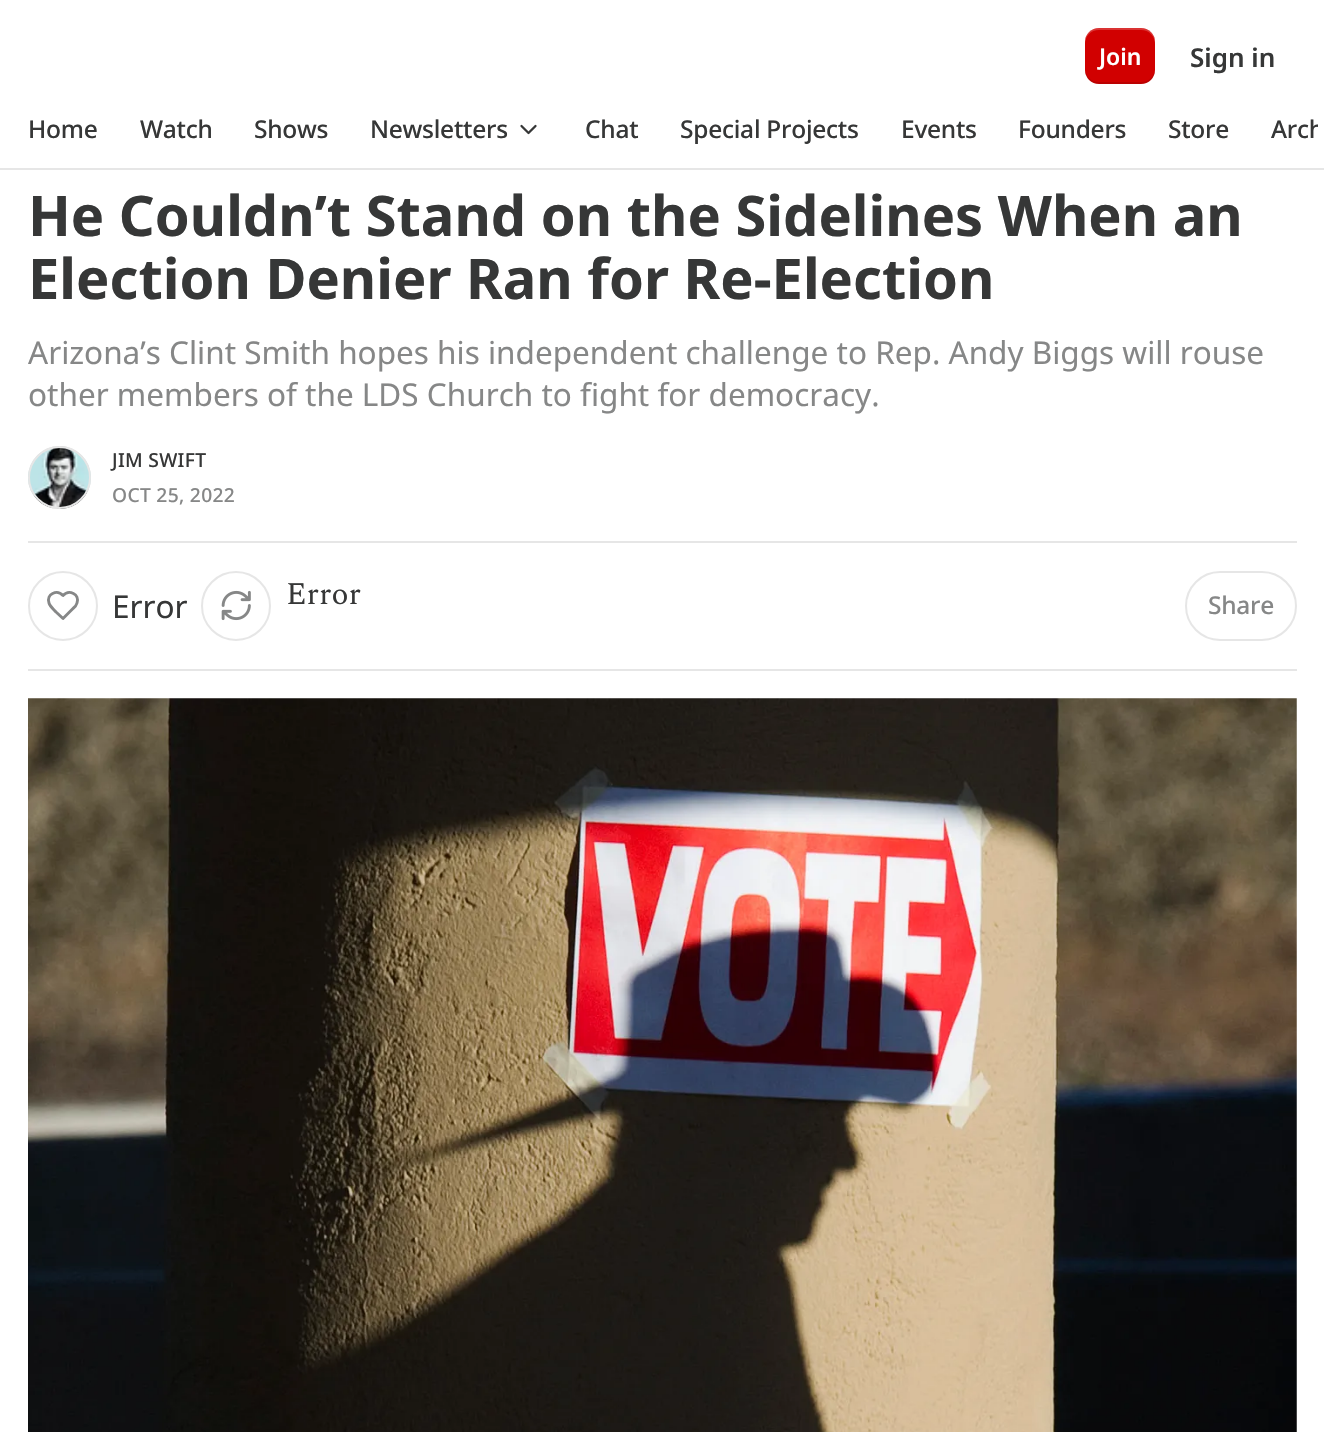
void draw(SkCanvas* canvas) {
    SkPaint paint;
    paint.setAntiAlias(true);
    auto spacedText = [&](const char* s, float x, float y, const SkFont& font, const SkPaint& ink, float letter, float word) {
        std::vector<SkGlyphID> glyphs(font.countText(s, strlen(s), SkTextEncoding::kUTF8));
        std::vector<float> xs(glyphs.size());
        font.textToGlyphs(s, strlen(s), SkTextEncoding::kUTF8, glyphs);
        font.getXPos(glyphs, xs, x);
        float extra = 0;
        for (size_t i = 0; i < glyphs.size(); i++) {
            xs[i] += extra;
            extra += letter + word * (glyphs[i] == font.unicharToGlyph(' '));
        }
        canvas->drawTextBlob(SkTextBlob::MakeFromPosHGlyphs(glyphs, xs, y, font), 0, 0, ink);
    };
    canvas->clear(0xFFFFFFFF);
    paint.setColor(0xFFD10000);
    canvas->drawRoundRect(SkRect::MakeXYWH(1085, 28, 70, 56), 14, 14, paint);
    paint.setColor(0x1A000000);
    canvas->drawPath(SkPathBuilder().moveTo(1085, 68).lineTo(1085, 70).cubicTo(1085, 78, 1091, 84, 1099, 84).lineTo(1141, 84).cubicTo(1149, 84, 1155, 78, 1155, 70).lineTo(1155, 68).cubicTo(1155, 76, 1149, 82, 1141, 82).lineTo(1099, 82).cubicTo(1091, 82, 1085, 76, 1085, 68).close().detach(), paint);
    paint.setColor(0x33FFFFFF);
    canvas->drawPath(SkPathBuilder().moveTo(1099, 30).lineTo(1141, 30).cubicTo(1149, 30, 1155, 36, 1155, 44).lineTo(1155, 42).cubicTo(1155, 34, 1149, 28, 1141, 28).lineTo(1099, 28).cubicTo(1091, 28, 1085, 34, 1085, 42).lineTo(1085, 44).cubicTo(1085, 36, 1091, 30, 1099, 30).close().detach(), paint);
    SkFont font1(fontMgr->matchFamilyStyle("Noto Sans", SkFontStyle(600, SkFontStyle::kNormal_Width, SkFontStyle::kUpright_Slant)), 23);
    font1.setSubpixel(true);
    paint.setColor(0xFFFFFFFF);
    canvas->drawString("Join", 1099, 65, font1, paint);
    SkFont font2(fontMgr->matchFamilyStyle("Noto Sans", SkFontStyle(600, SkFontStyle::kNormal_Width, SkFontStyle::kUpright_Slant)), 26);
    font2.setSubpixel(true);
    paint.setColor(0xFF363737);
    canvas->drawString("Sign in", 1190, 67, font2, paint);
    paint.setColor(0xFFE6E6E6);
    canvas->drawRect(SkRect::MakeXYWH(0, 168, 1324, 2), paint);
    SkFont font3(fontMgr->matchFamilyStyle("Noto Sans", SkFontStyle(500, SkFontStyle::kNormal_Width, SkFontStyle::kUpright_Slant)), 24.5f);
    font3.setSubpixel(true);
    paint.setColor(0xFF363737);
    spacedText("Home", 28, 138, font3, paint, -0.25f, 0);
    spacedText("Watch", 140, 138, font3, paint, -0.25f, 0);
    spacedText("Shows", 254, 138, font3, paint, -0.25f, 0);
    spacedText("Newsletters", 370, 138, font3, paint, -0.25f, 0);
    paint.setStyle(SkPaint::kStroke_Style);
    paint.setStrokeWidth(2.3f);
    paint.setStrokeCap(SkPaint::kRound_Cap);
    paint.setStrokeJoin(SkPaint::kRound_Join);
    canvas->drawPath(SkPathBuilder().moveTo(521.5f, 126).lineTo(528.5f, 133).lineTo(535.5f, 126).detach(), paint);
    paint.setStyle(SkPaint::kFill_Style);
    spacedText("Chat", 585, 138, font3, paint, -0.25f, 0);
    spacedText("Special Projects", 680, 138, font3, paint, -0.25f, 0);
    spacedText("Events", 901, 138, font3, paint, -0.25f, 0);
    spacedText("Founders", 1018, 138, font3, paint, -0.25f, 0);
    spacedText("Store", 1168, 138, font3, paint, -0.25f, 0);
    canvas->save();
    canvas->clipRect(SkRect::MakeXYWH(7, 91, 1311, 77));
    spacedText("Arch", 1271, 138, font3, paint, -0.25f, 0);
    canvas->restore();
    SkFont font4(fontMgr->matchFamilyStyle("Noto Sans", SkFontStyle::Bold()), 56);
    font4.setSubpixel(true);
    canvas->drawString("He Couldn’t Stand on the Sidelines When an", 28, 236, font4, paint);
    canvas->drawString("Election Denier Ran for Re-Election", 28, 299, font4, paint);
    SkFont font5(fontMgr->matchFamilyStyle("Noto Sans", SkFontStyle::Normal()), 31.5f);
    font5.setSubpixel(true);
    paint.setColor(0xFF868787);
    canvas->drawString("Arizona’s Clint Smith hopes his independent challenge to Rep. Andy Biggs will rouse", 28, 364, font5, paint);
    canvas->drawString("other members of the LDS Church to fight for democracy.", 28, 406, font5, paint);
    paint.setStyle(SkPaint::kStroke_Style);
    paint.setStrokeWidth(2);
    paint.setStrokeCap(SkPaint::kButt_Cap);
    paint.setStrokeJoin(SkPaint::kMiter_Join);
    paint.setColor(0xFFE6E6E6);
    canvas->drawCircle(59.5f, 477.5f, 30.5f, paint);
    canvas->drawImageRect(SkImages::DeferredFromEncodedData(SkData::MakeFromFileName("img1.png")), SkRect::MakeXYWH(28, 446, 63, 63), SkSamplingOptions());
    canvas->drawCircle(59.5f, 477.5f, 30.5f, paint);
    SkFont font6(fontMgr->matchFamilyStyle("Noto Sans", SkFontStyle(500, SkFontStyle::kNormal_Width, SkFontStyle::kUpright_Slant)), 19.25f);
    font6.setSubpixel(true);
    paint.setStyle(SkPaint::kFill_Style);
    paint.setColor(0xFF363737);
    spacedText("JIM SWIFT", 112, 467, font6, paint, 0.3f, 0);
    paint.setColor(0xFF868787);
    spacedText("OCT 25, 2022", 112, 502, font6, paint, 0.3f, 0);
    paint.setColor(0xFFE6E6E6);
    canvas->drawRect(SkRect::MakeXYWH(28, 541, 1269, 2), paint);
    canvas->drawRect(SkRect::MakeXYWH(28, 669, 1269, 2), paint);
    paint.setStyle(SkPaint::kStroke_Style);
    canvas->drawCircle(63, 606, 34, paint);
    paint.setStrokeWidth(2.9f);
    paint.setStrokeCap(SkPaint::kRound_Cap);
    paint.setStrokeJoin(SkPaint::kRound_Join);
    paint.setColor(0xFF868787);
    canvas->drawPath(SkPathBuilder().moveTo(73, 608.5f).cubicTo(75, 607, 76.5f, 605, 77, 603).cubicTo(80, 594, 69, 589, 63, 595.5f).cubicTo(57, 589, 46, 594, 49, 603).cubicTo(50, 606.5f, 53.5f, 609, 56, 612).lineTo(63, 618.5f).close().detach(), paint);
    paint.setStyle(SkPaint::kFill_Style);
    paint.setColor(0xFF363737);
    canvas->drawString("Error", 112, 618, font5, paint);
    paint.setStyle(SkPaint::kStroke_Style);
    paint.setStrokeWidth(2);
    paint.setStrokeCap(SkPaint::kButt_Cap);
    paint.setStrokeJoin(SkPaint::kMiter_Join);
    paint.setColor(0xFFE6E6E6);
    canvas->drawCircle(236, 606, 34, paint);
    canvas->drawImageRect(SkImages::DeferredFromEncodedData(SkData::MakeFromFileName("img2.png")), SkRect::MakeXYWH(221, 590, 30, 31), SkSamplingOptions());
    SkFont font7(fontMgr->matchFamilyStyle("Spectral", SkFontStyle::Normal()), 31.5f);
    font7.setSubpixel(true);
    paint.setStyle(SkPaint::kFill_Style);
    paint.setColor(0xFF363737);
    canvas->drawString("Error", 286, 604, font7, paint);
    paint.setStyle(SkPaint::kStroke_Style);
    paint.setColor(0xFFE6E6E6);
    canvas->drawRoundRect(SkRect::MakeXYWH(1186, 572, 110, 68), 34, 34, paint);
    paint.setStyle(SkPaint::kFill_Style);
    paint.setColor(0xFF868787);
    spacedText("Share", 1208, 614, font3, paint, -0.25f, 0);
    canvas->drawImageRect(SkImages::DeferredFromEncodedData(SkData::MakeFromFileName("img3.png")), SkRect::MakeXYWH(28, 698, 1269, 734), SkSamplingOptions());
}
